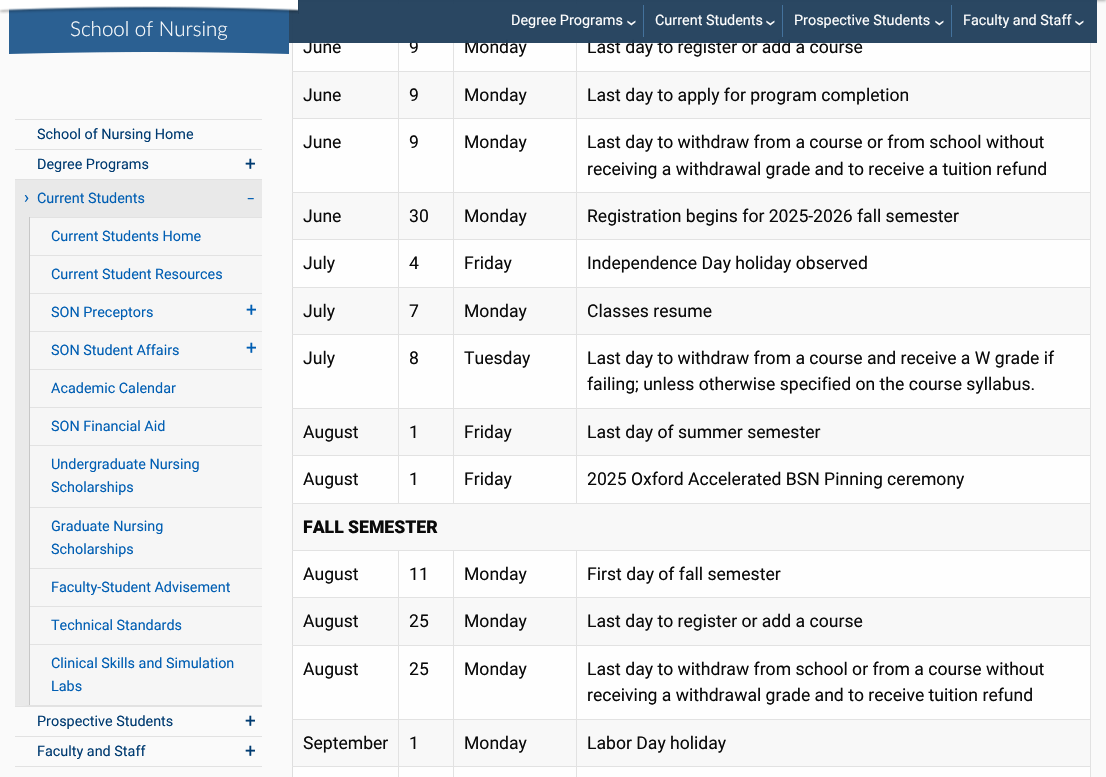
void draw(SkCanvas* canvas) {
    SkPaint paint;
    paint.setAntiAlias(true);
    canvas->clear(0xFFFAFAFA);
    paint.setColor(0xFFDEDEDE);
    canvas->drawRect(SkRect::MakeXYWH(292, 0, 1, 777), paint);
    paint.setColor(0xFFE2E2E2);
    canvas->drawRect(SkRect::MakeXYWH(1090, 0, 1, 777), paint);
    paint.setColor(0xFFFEFEFE);
    canvas->drawRect(SkRect::MakeXYWH(293, 24, 797, 753), paint);
    paint.setColor(0xFFF8F8F8);
    canvas->drawRect(SkRect::MakeXYWH(293, 72, 797, 46), paint);
    canvas->drawRect(SkRect::MakeXYWH(293, 193, 797, 46), paint);
    canvas->drawRect(SkRect::MakeXYWH(293, 288, 797, 46), paint);
    canvas->drawRect(SkRect::MakeXYWH(293, 409, 797, 46), paint);
    paint.setColor(0xFFE2E2E2);
    canvas->drawRect(SkRect::MakeXYWH(576, 503, 515, 1), paint);
    canvas->drawRect(SkRect::MakeXYWH(576, 455, 1, 49), paint);
    canvas->drawRect(SkRect::MakeXYWH(576, 455, 515, 1), paint);
    canvas->drawRect(SkRect::MakeXYWH(576, 408, 1, 48), paint);
    canvas->drawRect(SkRect::MakeXYWH(576, 408, 515, 1), paint);
    canvas->drawRect(SkRect::MakeXYWH(576, 334, 1, 75), paint);
    canvas->drawRect(SkRect::MakeXYWH(576, 334, 515, 1), paint);
    canvas->drawRect(SkRect::MakeXYWH(576, 287, 1, 48), paint);
    canvas->drawRect(SkRect::MakeXYWH(576, 287, 515, 1), paint);
    canvas->drawRect(SkRect::MakeXYWH(576, 239, 1, 49), paint);
    canvas->drawRect(SkRect::MakeXYWH(576, 239, 515, 1), paint);
    canvas->drawRect(SkRect::MakeXYWH(576, 192, 1, 48), paint);
    canvas->drawRect(SkRect::MakeXYWH(576, 192, 515, 1), paint);
    canvas->drawRect(SkRect::MakeXYWH(576, 118, 1, 75), paint);
    canvas->drawRect(SkRect::MakeXYWH(576, 118, 515, 1), paint);
    canvas->drawRect(SkRect::MakeXYWH(576, 71, 1, 48), paint);
    canvas->drawRect(SkRect::MakeXYWH(576, 71, 515, 1), paint);
    canvas->drawRect(SkRect::MakeXYWH(576, 23, 1, 49), paint);
    canvas->drawRect(SkRect::MakeXYWH(576, 23, 515, 1), paint);
    canvas->drawRect(SkRect::MakeXYWH(576, 0, 1, 24), paint);
    canvas->drawRect(SkRect::MakeXYWH(453, 503, 124, 1), paint);
    canvas->drawRect(SkRect::MakeXYWH(453, 455, 1, 49), paint);
    canvas->drawRect(SkRect::MakeXYWH(453, 455, 124, 1), paint);
    canvas->drawRect(SkRect::MakeXYWH(453, 408, 1, 48), paint);
    canvas->drawRect(SkRect::MakeXYWH(453, 408, 124, 1), paint);
    canvas->drawRect(SkRect::MakeXYWH(453, 334, 1, 75), paint);
    canvas->drawRect(SkRect::MakeXYWH(453, 334, 124, 1), paint);
    canvas->drawRect(SkRect::MakeXYWH(453, 287, 1, 48), paint);
    canvas->drawRect(SkRect::MakeXYWH(453, 287, 124, 1), paint);
    canvas->drawRect(SkRect::MakeXYWH(453, 239, 1, 49), paint);
    canvas->drawRect(SkRect::MakeXYWH(453, 239, 124, 1), paint);
    canvas->drawRect(SkRect::MakeXYWH(453, 192, 1, 48), paint);
    canvas->drawRect(SkRect::MakeXYWH(453, 192, 124, 1), paint);
    canvas->drawRect(SkRect::MakeXYWH(453, 118, 1, 75), paint);
    canvas->drawRect(SkRect::MakeXYWH(453, 118, 124, 1), paint);
    canvas->drawRect(SkRect::MakeXYWH(453, 71, 1, 48), paint);
    canvas->drawRect(SkRect::MakeXYWH(453, 71, 124, 1), paint);
    canvas->drawRect(SkRect::MakeXYWH(453, 23, 1, 49), paint);
    canvas->drawRect(SkRect::MakeXYWH(453, 23, 124, 1), paint);
    canvas->drawRect(SkRect::MakeXYWH(453, 0, 1, 24), paint);
    canvas->drawRect(SkRect::MakeXYWH(398, 503, 56, 1), paint);
    canvas->drawRect(SkRect::MakeXYWH(398, 455, 1, 49), paint);
    canvas->drawRect(SkRect::MakeXYWH(398, 455, 56, 1), paint);
    canvas->drawRect(SkRect::MakeXYWH(398, 408, 1, 48), paint);
    canvas->drawRect(SkRect::MakeXYWH(398, 408, 56, 1), paint);
    canvas->drawRect(SkRect::MakeXYWH(398, 334, 1, 75), paint);
    canvas->drawRect(SkRect::MakeXYWH(398, 334, 56, 1), paint);
    canvas->drawRect(SkRect::MakeXYWH(398, 287, 1, 48), paint);
    canvas->drawRect(SkRect::MakeXYWH(398, 287, 56, 1), paint);
    canvas->drawRect(SkRect::MakeXYWH(398, 239, 1, 49), paint);
    canvas->drawRect(SkRect::MakeXYWH(398, 239, 56, 1), paint);
    canvas->drawRect(SkRect::MakeXYWH(398, 192, 1, 48), paint);
    canvas->drawRect(SkRect::MakeXYWH(398, 192, 56, 1), paint);
    canvas->drawRect(SkRect::MakeXYWH(398, 118, 1, 75), paint);
    canvas->drawRect(SkRect::MakeXYWH(398, 118, 56, 1), paint);
    canvas->drawRect(SkRect::MakeXYWH(398, 71, 1, 48), paint);
    canvas->drawRect(SkRect::MakeXYWH(398, 71, 56, 1), paint);
    canvas->drawRect(SkRect::MakeXYWH(398, 23, 1, 49), paint);
    canvas->drawRect(SkRect::MakeXYWH(398, 23, 56, 1), paint);
    canvas->drawRect(SkRect::MakeXYWH(398, 0, 1, 24), paint);
    paint.setColor(0x4D000000);
    paint.setMaskFilter(SkMaskFilter::MakeBlur(kNormal_SkBlurStyle, 1.5f));
    canvas->drawRect(SkRect::MakeXYWH(0, -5, 1106, 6), paint);
    paint.setMaskFilter(nullptr);
    canvas->drawImageRect(SkImages::DeferredFromEncodedData(SkData::MakeFromFileName("img2.png")), SkRect::MakeXYWH(9, 6, 280, 48), SkSamplingOptions());
    paint.setColor(0xFFE2E2E2);
    canvas->drawRect(SkRect::MakeXYWH(292, 23, 107, 1), paint);
    SkFont font1(fontMgr->matchFamilyStyle("Roboto", SkFontStyle::Normal()), 17.6f);
    font1.setSubpixel(true);
    paint.setColor(0xFF0A0A0A);
    canvas->drawString("June", 303, 53, font1, paint);
    canvas->drawString("9", 409, 53, font1, paint);
    canvas->drawString("Monday", 464, 53, font1, paint);
    canvas->drawString("Last day to register or add a course", 587, 53, font1, paint);
    paint.setColor(0xF723415D);
    canvas->drawRect(SkRect::MakeXYWH(289, 0, 808, 43), paint);
    canvas->drawImageRect(SkImages::DeferredFromEncodedData(SkData::MakeFromFileName("img1.png")), SkRect::MakeXYWH(0, 0, 298, 14), SkSamplingOptions());
    paint.setColor(0xFF253F58);
    canvas->drawRect(SkRect::MakeXYWH(298, 0, 1, 14), paint);
    SkFont font2(fontMgr->matchFamilyStyle("Lato", SkFontStyle(300, SkFontStyle::kNormal_Width, SkFontStyle::kUpright_Slant)), 20.5f);
    font2.setSubpixel(true);
    paint.setColor(0xFFFFFFFF);
    canvas->drawString("School of Nursing", 70, 36, font2, paint);
    paint.setColor(0xFF44729C);
    canvas->drawRect(SkRect::MakeXYWH(643, 5, 1, 32), paint);
    SkFont font3(fontMgr->matchFamilyStyle("Roboto", SkFontStyle::Normal()), 14.4f);
    font3.setSubpixel(true);
    paint.setColor(0xFFFFFFFF);
    canvas->drawString("Degree Programs", 511, 25, font3, paint);
    SkFont font4(fontMgr->matchFamilyStyle("Roboto", SkFontStyle::Normal()), 20);
    font4.setSubpixel(true);
    canvas->save();
    canvas->rotate(90, 626, 20);
    canvas->drawString("›", 626, 20, font4, paint);
    canvas->restore();
    paint.setColor(0xFF44729C);
    canvas->drawRect(SkRect::MakeXYWH(782, 5, 1, 32), paint);
    paint.setColor(0xFFFFFFFF);
    canvas->drawString("Current Students", 655, 25, font3, paint);
    canvas->save();
    canvas->rotate(90, 765, 20);
    canvas->drawString("›", 765, 20, font4, paint);
    canvas->restore();
    paint.setColor(0xFF44729C);
    canvas->drawRect(SkRect::MakeXYWH(951, 5, 1, 32), paint);
    paint.setColor(0xFFFFFFFF);
    canvas->drawString("Prospective Students", 794, 25, font3, paint);
    canvas->save();
    canvas->rotate(90, 934, 20);
    canvas->drawString("›", 934, 20, font4, paint);
    canvas->restore();
    canvas->drawString("Faculty and Staff", 963, 25, font3, paint);
    canvas->save();
    canvas->rotate(90, 1074, 20);
    canvas->drawString("›", 1074, 20, font4, paint);
    canvas->restore();
    paint.setColor(0xFFE2E2E2);
    canvas->drawRect(SkRect::MakeXYWH(15, 119, 247, 1), paint);
    paint.setColor(0xFF003B71);
    canvas->drawString("School of Nursing Home", 37, 139, font3, paint);
    paint.setColor(0xFFE2E2E2);
    canvas->drawRect(SkRect::MakeXYWH(15, 149, 247, 1), paint);
    paint.setColor(0xFF003B71);
    canvas->drawString("Degree Programs", 37, 169, font3, paint);
    SkFont font5(fontMgr->matchFamilyStyle("Roboto", SkFontStyle::Normal()), 19);
    font5.setSubpixel(true);
    canvas->drawString("+", 245, 170, font5, paint);
    paint.setColor(0xFFE2E2E2);
    canvas->drawRect(SkRect::MakeXYWH(15, 179, 247, 1), paint);
    paint.setColor(0xFFE9E9E9);
    canvas->drawRect(SkRect::MakeXYWH(15, 180, 247, 37), paint);
    SkFont font6(fontMgr->matchFamilyStyle("Roboto", SkFontStyle::Normal()), 17);
    font6.setSubpixel(true);
    paint.setColor(0xFF005EB3);
    canvas->drawString("›", 24, 203, font6, paint);
    canvas->drawString("Current Students", 37, 203, font3, paint);
    SkFont font7(fontMgr->matchFamilyStyle("Noto Sans", SkFontStyle::Normal()), 22);
    font7.setSubpixel(true);
    canvas->drawString("₋", 247, 200, font7, paint);
    paint.setColor(0xFFF6F6F6);
    canvas->drawRect(SkRect::MakeXYWH(15, 218, 247, 488), paint);
    paint.setColor(0xFFE2E2E2);
    canvas->drawPath(SkPathBuilder().moveTo(262, 706).lineTo(15, 706).lineTo(29, 705).lineTo(262, 705).close().detach(), paint);
    paint.setColor(0xFFE9E9E9);
    canvas->drawPath(SkPathBuilder().moveTo(15, 706).lineTo(15, 217).lineTo(29, 217).lineTo(29, 705).close().detach(), paint);
    paint.setColor(0xFFE2E2E2);
    canvas->drawRect(SkRect::MakeXYWH(29, 217, 233, 1), paint);
    paint.setColor(0xFFC7C7C7);
    canvas->drawRect(SkRect::MakeXYWH(29, 217, 1, 38), paint);
    paint.setColor(0xFF005EB3);
    canvas->drawString("Current Students Home", 51, 241, font3, paint);
    paint.setColor(0xFFE2E2E2);
    canvas->drawRect(SkRect::MakeXYWH(29, 255, 233, 1), paint);
    paint.setColor(0xFFC7C7C7);
    canvas->drawRect(SkRect::MakeXYWH(29, 255, 1, 38), paint);
    paint.setColor(0xFF005EB3);
    canvas->drawString("Current Student Resources", 51, 279, font3, paint);
    paint.setColor(0xFFE2E2E2);
    canvas->drawRect(SkRect::MakeXYWH(29, 293, 233, 1), paint);
    paint.setColor(0xFFC7C7C7);
    canvas->drawRect(SkRect::MakeXYWH(29, 293, 1, 38), paint);
    paint.setColor(0xFF005EB3);
    canvas->drawString("SON Preceptors", 51, 317, font3, paint);
    canvas->drawString("+", 246, 316, font5, paint);
    paint.setColor(0xFFE2E2E2);
    canvas->drawRect(SkRect::MakeXYWH(29, 331, 233, 1), paint);
    paint.setColor(0xFFC7C7C7);
    canvas->drawRect(SkRect::MakeXYWH(29, 331, 1, 38), paint);
    paint.setColor(0xFF005EB3);
    canvas->drawString("SON Student Affairs", 51, 355, font3, paint);
    canvas->drawString("+", 246, 354, font5, paint);
    paint.setColor(0xFFE2E2E2);
    canvas->drawRect(SkRect::MakeXYWH(29, 369, 233, 1), paint);
    paint.setColor(0xFFC7C7C7);
    canvas->drawRect(SkRect::MakeXYWH(29, 369, 1, 38), paint);
    paint.setColor(0xFF005EB3);
    canvas->drawString("Academic Calendar", 51, 393, font3, paint);
    paint.setColor(0xFFE2E2E2);
    canvas->drawRect(SkRect::MakeXYWH(29, 407, 233, 1), paint);
    paint.setColor(0xFFC7C7C7);
    canvas->drawRect(SkRect::MakeXYWH(29, 407, 1, 38), paint);
    paint.setColor(0xFF005EB3);
    canvas->drawString("SON Financial Aid", 51, 431, font3, paint);
    paint.setColor(0xFFE2E2E2);
    canvas->drawRect(SkRect::MakeXYWH(29, 445, 233, 1), paint);
    paint.setColor(0xFFC7C7C7);
    canvas->drawRect(SkRect::MakeXYWH(29, 445, 1, 62), paint);
    paint.setColor(0xFF005EB3);
    canvas->drawString("Undergraduate Nursing", 51, 469, font3, paint);
    canvas->drawString("Scholarships", 51, 492, font3, paint);
    paint.setColor(0xFFE2E2E2);
    canvas->drawRect(SkRect::MakeXYWH(29, 507, 233, 1), paint);
    paint.setColor(0xFFC7C7C7);
    canvas->drawRect(SkRect::MakeXYWH(29, 507, 1, 61), paint);
    paint.setColor(0xFF005EB3);
    canvas->drawString("Graduate Nursing", 51, 531, font3, paint);
    canvas->drawString("Scholarships", 51, 554, font3, paint);
    paint.setColor(0xFFE2E2E2);
    canvas->drawRect(SkRect::MakeXYWH(29, 568, 233, 1), paint);
    paint.setColor(0xFFC7C7C7);
    canvas->drawRect(SkRect::MakeXYWH(29, 568, 1, 38), paint);
    paint.setColor(0xFF005EB3);
    canvas->drawString("Faculty-Student Advisement", 51, 592, font3, paint);
    paint.setColor(0xFFE2E2E2);
    canvas->drawRect(SkRect::MakeXYWH(29, 606, 233, 1), paint);
    paint.setColor(0xFFC7C7C7);
    canvas->drawRect(SkRect::MakeXYWH(29, 606, 1, 38), paint);
    paint.setColor(0xFF005EB3);
    canvas->drawString("Technical Standards", 51, 630, font3, paint);
    paint.setColor(0xFFE2E2E2);
    canvas->drawRect(SkRect::MakeXYWH(29, 644, 233, 1), paint);
    paint.setColor(0xFFC7C7C7);
    canvas->drawRect(SkRect::MakeXYWH(29, 644, 1, 61), paint);
    paint.setColor(0xFF005EB3);
    canvas->drawString("Clinical Skills and Simulation", 51, 668, font3, paint);
    canvas->drawString("Labs", 51, 691, font3, paint);
    paint.setColor(0xFFE2E2E2);
    canvas->drawRect(SkRect::MakeXYWH(15, 706, 247, 1), paint);
    paint.setColor(0xFF003B71);
    canvas->drawString("Prospective Students", 37, 726, font3, paint);
    canvas->drawString("+", 245, 727, font5, paint);
    paint.setColor(0xFFE2E2E2);
    canvas->drawRect(SkRect::MakeXYWH(15, 736, 247, 1), paint);
    paint.setColor(0xFF003B71);
    canvas->drawString("Faculty and Staff", 37, 756, font3, paint);
    canvas->drawString("+", 245, 757, font5, paint);
    paint.setColor(0xFFE2E2E2);
    canvas->drawRect(SkRect::MakeXYWH(15, 766, 247, 1), paint);
    canvas->drawRect(SkRect::MakeXYWH(398, 766, 1, 11), paint);
    canvas->drawRect(SkRect::MakeXYWH(453, 766, 1, 11), paint);
    canvas->drawRect(SkRect::MakeXYWH(576, 766, 1, 11), paint);
    canvas->drawRect(SkRect::MakeXYWH(292, 71, 107, 1), paint);
    canvas->drawRect(SkRect::MakeXYWH(292, 118, 107, 1), paint);
    paint.setColor(0xFF0A0A0A);
    canvas->drawString("June", 303, 101, font1, paint);
    canvas->drawString("9", 409, 101, font1, paint);
    canvas->drawString("Monday", 464, 101, font1, paint);
    canvas->drawString("Last day to apply for program completion", 587, 101, font1, paint);
    paint.setColor(0xFFE2E2E2);
    canvas->drawRect(SkRect::MakeXYWH(292, 192, 107, 1), paint);
    paint.setColor(0xFF0A0A0A);
    canvas->drawString("June", 303, 148, font1, paint);
    canvas->drawString("9", 409, 148, font1, paint);
    canvas->drawString("Monday", 464, 148, font1, paint);
    canvas->drawString("Last day to withdraw from a course or from school without", 587, 148, font1, paint);
    canvas->drawString("receiving a withdrawal grade and to receive a tuition refund", 587, 175, font1, paint);
    paint.setColor(0xFFE2E2E2);
    canvas->drawRect(SkRect::MakeXYWH(292, 239, 107, 1), paint);
    paint.setColor(0xFF0A0A0A);
    canvas->drawString("June", 303, 222, font1, paint);
    canvas->drawString("30", 409, 222, font1, paint);
    canvas->drawString("Monday", 464, 222, font1, paint);
    canvas->drawString("Registration begins for 2025-2026 fall semester", 587, 222, font1, paint);
    paint.setColor(0xFFE2E2E2);
    canvas->drawRect(SkRect::MakeXYWH(292, 287, 107, 1), paint);
    paint.setColor(0xFF0A0A0A);
    canvas->drawString("July", 303, 269, font1, paint);
    canvas->drawString("4", 409, 269, font1, paint);
    canvas->drawString("Friday", 464, 269, font1, paint);
    canvas->drawString("Independence Day holiday observed", 587, 269, font1, paint);
    paint.setColor(0xFFE2E2E2);
    canvas->drawRect(SkRect::MakeXYWH(292, 334, 107, 1), paint);
    paint.setColor(0xFF0A0A0A);
    canvas->drawString("July", 303, 317, font1, paint);
    canvas->drawString("7", 409, 317, font1, paint);
    canvas->drawString("Monday", 464, 317, font1, paint);
    canvas->drawString("Classes resume", 587, 317, font1, paint);
    paint.setColor(0xFFE2E2E2);
    canvas->drawRect(SkRect::MakeXYWH(292, 408, 107, 1), paint);
    paint.setColor(0xFF0A0A0A);
    canvas->drawString("July", 303, 364, font1, paint);
    canvas->drawString("8", 409, 364, font1, paint);
    canvas->drawString("Tuesday", 464, 364, font1, paint);
    canvas->drawString("Last day to withdraw from a course and receive a W grade if", 587, 364, font1, paint);
    canvas->drawString("failing; unless otherwise specified on the course syllabus.", 587, 390, font1, paint);
    paint.setColor(0xFFE2E2E2);
    canvas->drawRect(SkRect::MakeXYWH(292, 455, 107, 1), paint);
    paint.setColor(0xFF0A0A0A);
    canvas->drawString("August", 303, 438, font1, paint);
    canvas->drawString("1", 409, 438, font1, paint);
    canvas->drawString("Friday", 464, 438, font1, paint);
    canvas->drawString("Last day of summer semester", 587, 438, font1, paint);
    paint.setColor(0xFFE2E2E2);
    canvas->drawRect(SkRect::MakeXYWH(292, 503, 107, 1), paint);
    paint.setColor(0xFF0A0A0A);
    canvas->drawString("August", 303, 485, font1, paint);
    canvas->drawString("1", 409, 485, font1, paint);
    canvas->drawString("Friday", 464, 485, font1, paint);
    canvas->drawString("2025 Oxford Accelerated BSN Pinning ceremony", 587, 485, font1, paint);
    paint.setColor(0xFFF8F8F8);
    canvas->drawRect(SkRect::MakeXYWH(293, 504, 797, 46), paint);
    canvas->drawRect(SkRect::MakeXYWH(293, 598, 797, 47), paint);
    canvas->drawRect(SkRect::MakeXYWH(293, 720, 797, 46), paint);
    paint.setColor(0xFFE2E2E2);
    canvas->drawRect(SkRect::MakeXYWH(576, 766, 515, 1), paint);
    canvas->drawRect(SkRect::MakeXYWH(576, 719, 1, 48), paint);
    canvas->drawRect(SkRect::MakeXYWH(576, 719, 515, 1), paint);
    canvas->drawRect(SkRect::MakeXYWH(576, 645, 1, 75), paint);
    canvas->drawRect(SkRect::MakeXYWH(576, 645, 515, 1), paint);
    canvas->drawRect(SkRect::MakeXYWH(576, 597, 1, 49), paint);
    canvas->drawRect(SkRect::MakeXYWH(576, 597, 515, 1), paint);
    canvas->drawRect(SkRect::MakeXYWH(576, 550, 1, 48), paint);
    canvas->drawRect(SkRect::MakeXYWH(453, 766, 124, 1), paint);
    canvas->drawRect(SkRect::MakeXYWH(453, 719, 1, 48), paint);
    canvas->drawRect(SkRect::MakeXYWH(453, 719, 124, 1), paint);
    canvas->drawRect(SkRect::MakeXYWH(453, 645, 1, 75), paint);
    canvas->drawRect(SkRect::MakeXYWH(453, 645, 124, 1), paint);
    canvas->drawRect(SkRect::MakeXYWH(453, 597, 1, 49), paint);
    canvas->drawRect(SkRect::MakeXYWH(453, 597, 124, 1), paint);
    canvas->drawRect(SkRect::MakeXYWH(453, 550, 1, 48), paint);
    canvas->drawRect(SkRect::MakeXYWH(398, 766, 56, 1), paint);
    canvas->drawRect(SkRect::MakeXYWH(398, 719, 1, 48), paint);
    canvas->drawRect(SkRect::MakeXYWH(398, 719, 56, 1), paint);
    canvas->drawRect(SkRect::MakeXYWH(398, 645, 1, 75), paint);
    canvas->drawRect(SkRect::MakeXYWH(398, 645, 56, 1), paint);
    canvas->drawRect(SkRect::MakeXYWH(398, 597, 1, 49), paint);
    canvas->drawRect(SkRect::MakeXYWH(398, 597, 56, 1), paint);
    canvas->drawRect(SkRect::MakeXYWH(398, 550, 1, 48), paint);
    canvas->drawRect(SkRect::MakeXYWH(292, 550, 799, 1), paint);
    SkFont font8(fontMgr->matchFamilyStyle("Roboto", SkFontStyle(900, SkFontStyle::kNormal_Width, SkFontStyle::kUpright_Slant)), 17.6f);
    font8.setSubpixel(true);
    paint.setColor(0xFF0A0A0A);
    canvas->drawString("FALL SEMESTER", 303, 533, font8, paint);
    paint.setColor(0xFFE2E2E2);
    canvas->drawRect(SkRect::MakeXYWH(292, 597, 107, 1), paint);
    paint.setColor(0xFF0A0A0A);
    canvas->drawString("August", 303, 580, font1, paint);
    canvas->drawString("11", 409, 580, font1, paint);
    canvas->drawString("Monday", 464, 580, font1, paint);
    canvas->drawString("First day of fall semester", 587, 580, font1, paint);
    paint.setColor(0xFFE2E2E2);
    canvas->drawRect(SkRect::MakeXYWH(292, 645, 107, 1), paint);
    paint.setColor(0xFF0A0A0A);
    canvas->drawString("August", 303, 627, font1, paint);
    canvas->drawString("25", 409, 627, font1, paint);
    canvas->drawString("Monday", 464, 627, font1, paint);
    canvas->drawString("Last day to register or add a course", 587, 627, font1, paint);
    paint.setColor(0xFFE2E2E2);
    canvas->drawRect(SkRect::MakeXYWH(292, 719, 107, 1), paint);
    paint.setColor(0xFF0A0A0A);
    canvas->drawString("August", 303, 675, font1, paint);
    canvas->drawString("25", 409, 675, font1, paint);
    canvas->drawString("Monday", 464, 675, font1, paint);
    canvas->drawString("Last day to withdraw from school or from a course without", 587, 675, font1, paint);
    canvas->drawString("receiving a withdrawal grade and to receive tuition refund", 587, 701, font1, paint);
    paint.setColor(0xFFE2E2E2);
    canvas->drawRect(SkRect::MakeXYWH(292, 766, 107, 1), paint);
    paint.setColor(0xFF0A0A0A);
    canvas->drawString("September", 303, 749, font1, paint);
    canvas->drawString("1", 409, 749, font1, paint);
    canvas->drawString("Monday", 464, 749, font1, paint);
    canvas->drawString("Labor Day holiday", 587, 749, font1, paint);
}
